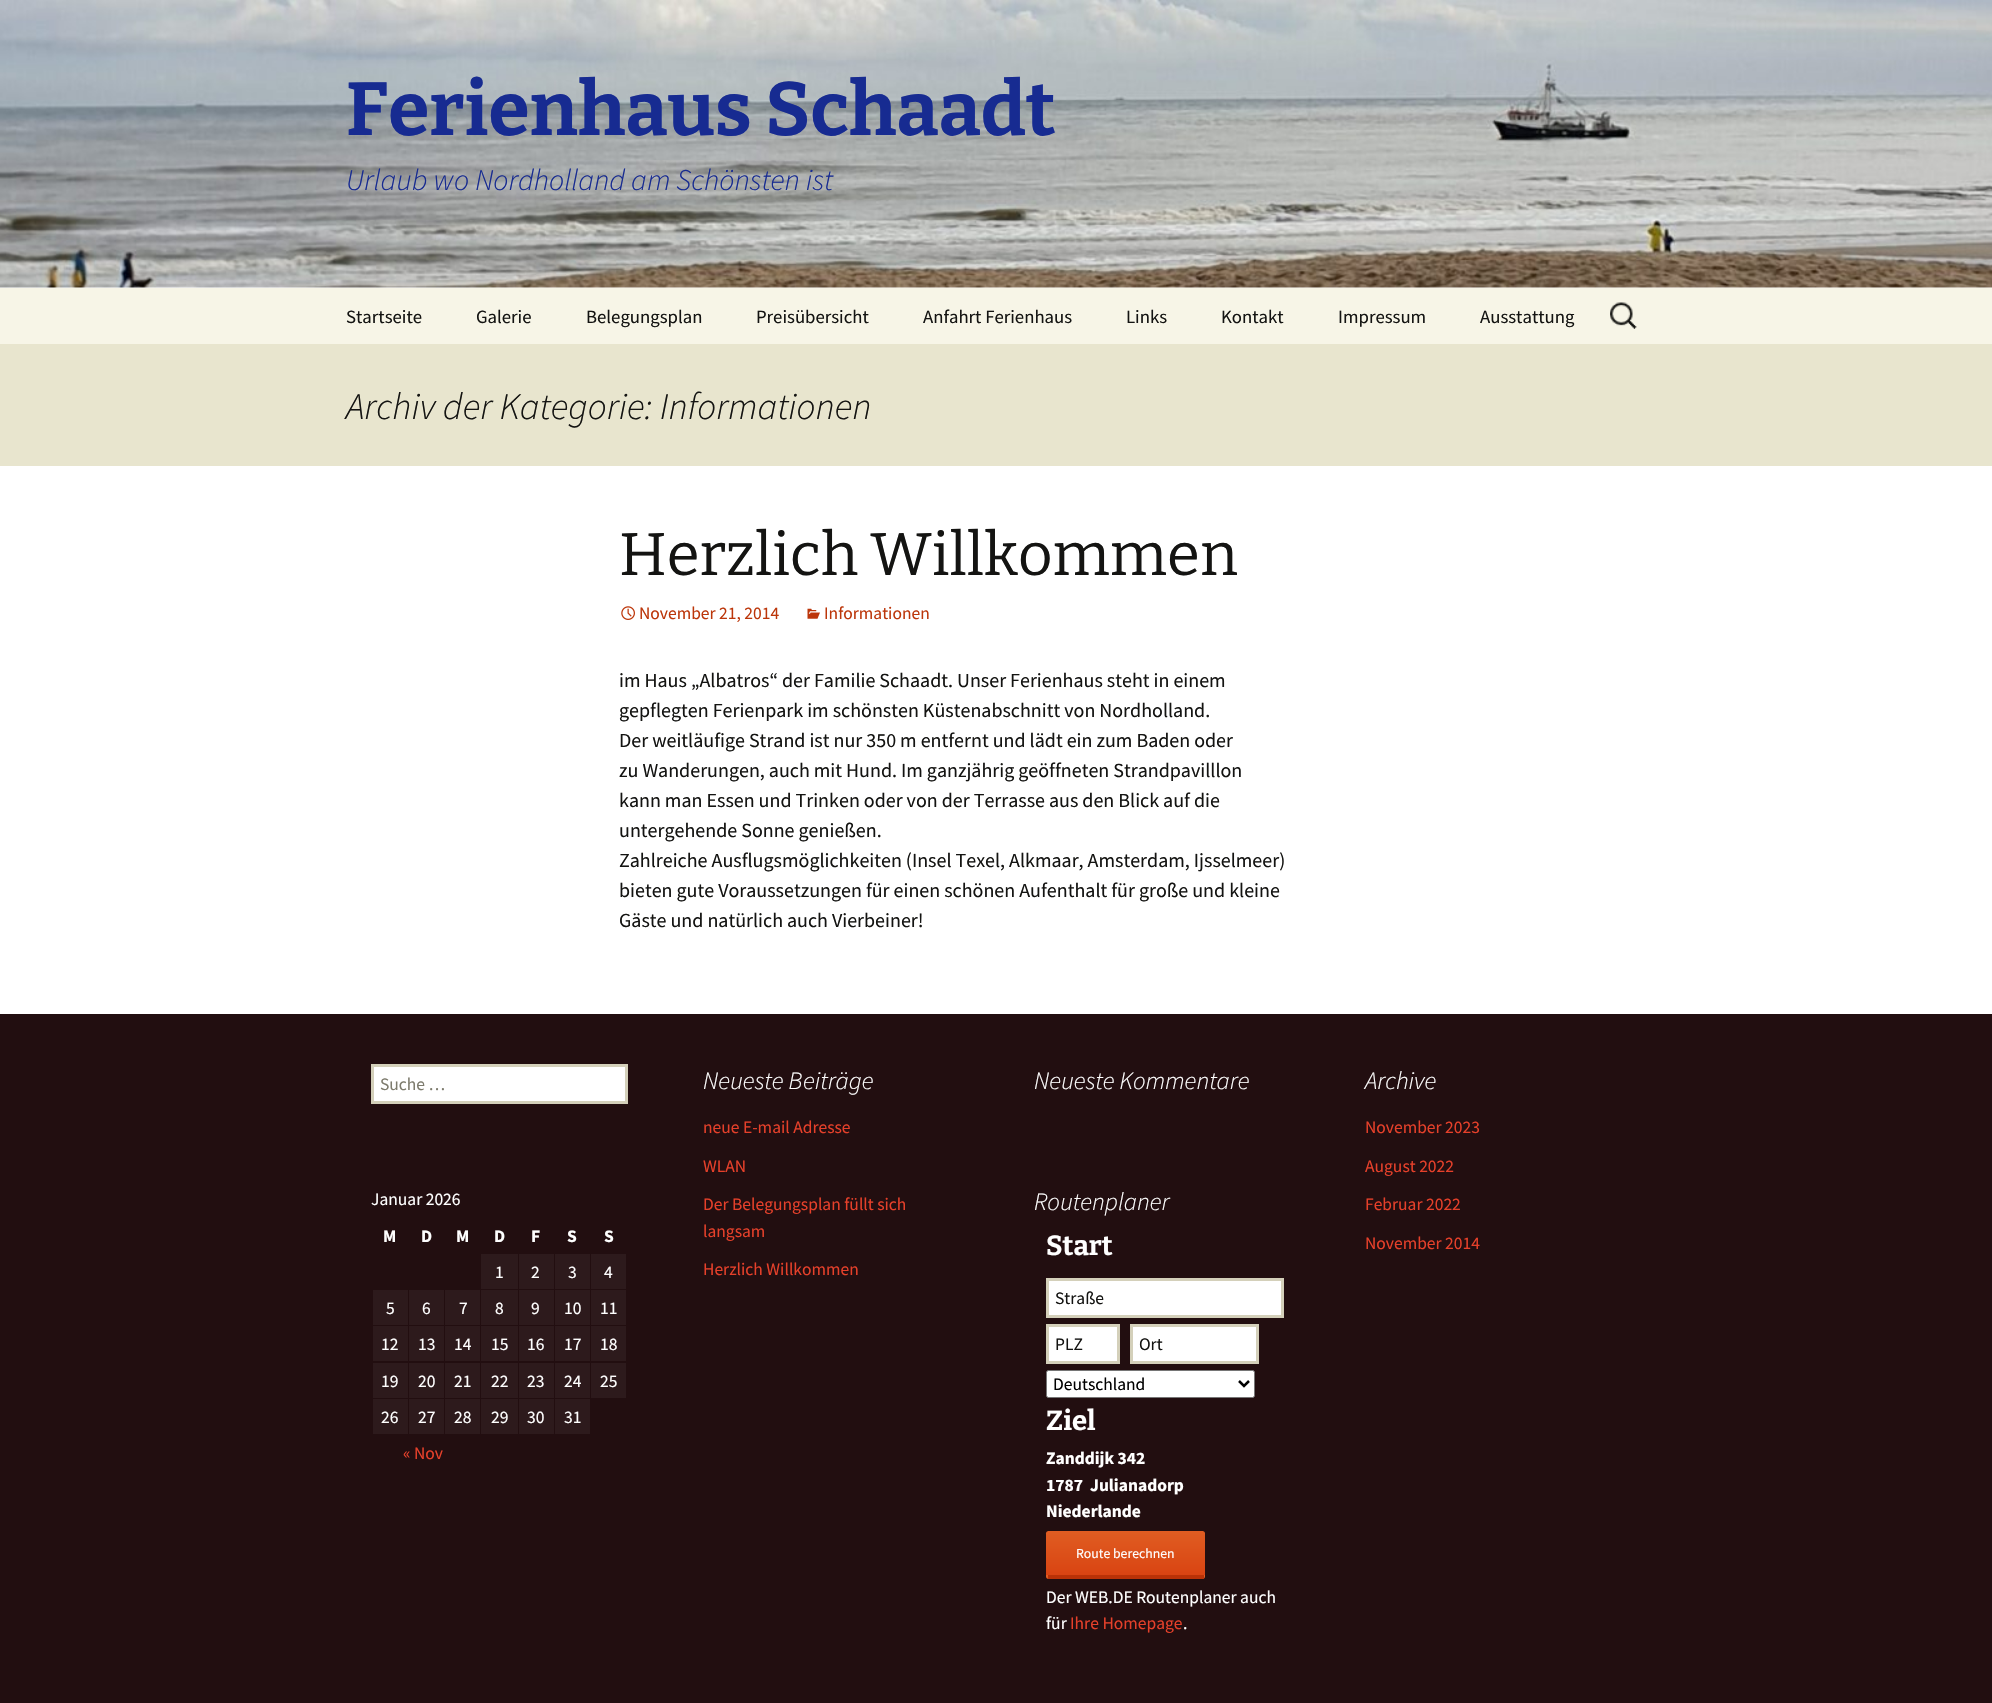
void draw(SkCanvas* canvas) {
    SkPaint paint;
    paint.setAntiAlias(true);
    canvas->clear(0xFFFFFFFF);
    canvas->drawImageRect(SkImages::DeferredFromEncodedData(SkData::MakeFromFileName("img1.png")), SkRect::MakeXYWH(0, 0, 1992, 288), SkSamplingOptions());
    SkFont font1(fontMgr->matchFamilyStyle("Bitter", SkFontStyle::Bold()), 75);
    font1.setSubpixel(true);
    paint.setColor(0xFF172B91);
    canvas->drawString("Ferienhaus Schaadt", 346, 135, font1, paint);
    SkFont font2(fontMgr->matchFamilyStyle("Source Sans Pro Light", SkFontStyle(300, SkFontStyle::kNormal_Width, SkFontStyle::kItalic_Slant)), 30);
    font2.setSubpixel(true);
    canvas->drawString("Urlaub wo Nordholland am Schönsten ist", 346, 190, font2, paint);
    paint.setColor(0xFFF7F5E7);
    canvas->drawRect(SkRect::MakeXYWH(0, 288, 1992, 56), paint);
    SkFont font3(fontMgr->matchFamilyStyle("Source Sans Pro", SkFontStyle::Normal()), 18.75f);
    font3.setSubpixel(true);
    paint.setColor(0xFF141412);
    canvas->drawString("Startseite", 346, 323, font3, paint);
    canvas->drawString("Galerie", 476, 323, font3, paint);
    canvas->drawString("Belegungsplan", 586, 323, font3, paint);
    canvas->drawString("Preisübersicht", 756, 323, font3, paint);
    canvas->drawString("Anfahrt Ferienhaus", 923, 323, font3, paint);
    canvas->drawString("Links", 1126, 323, font3, paint);
    canvas->drawString("Kontakt", 1221, 323, font3, paint);
    canvas->drawString("Impressum", 1338, 323, font3, paint);
    canvas->drawString("Ausstattung", 1480, 323, font3, paint);
    canvas->drawImageRect(SkImages::DeferredFromEncodedData(SkData::MakeFromFileName("img2.png")), SkRect::MakeXYWH(1610, 302, 27, 27), SkSamplingOptions());
    paint.setColor(0xFFE8E5CE);
    canvas->drawRect(SkRect::MakeXYWH(0, 344, 1992, 122), paint);
    SkFont font4(fontMgr->matchFamilyStyle("Source Sans Pro Light", SkFontStyle(300, SkFontStyle::kNormal_Width, SkFontStyle::kItalic_Slant)), 37.5f);
    font4.setSubpixel(true);
    paint.setColor(0xFF141412);
    canvas->drawString("Archiv der Kategorie: Informationen", 346, 419, font4, paint);
    SkFont font5(fontMgr->matchFamilyStyle("Bitter", SkFontStyle::Normal()), 60);
    font5.setSubpixel(true);
    canvas->drawString("Herzlich Willkommen", 619, 575, font5, paint);
    canvas->drawImageRect(SkImages::DeferredFromEncodedData(SkData::MakeFromFileName("img3.png")), SkRect::MakeXYWH(621, 606, 14, 14), SkSamplingOptions());
    SkFont font6(fontMgr->matchFamilyStyle("Source Sans Pro", SkFontStyle::Normal()), 17.5f);
    font6.setSubpixel(true);
    paint.setColor(0xFFBC360A);
    canvas->drawString("November 21, 2014", 639, 619, font6, paint);
    canvas->drawImageRect(SkImages::DeferredFromEncodedData(SkData::MakeFromFileName("img4.png")), SkRect::MakeXYWH(807, 608, 13, 11), SkSamplingOptions());
    canvas->drawString("Informationen", 824, 619, font6, paint);
    SkFont font7(fontMgr->matchFamilyStyle("Source Sans Pro", SkFontStyle::Normal()), 20);
    font7.setSubpixel(true);
    paint.setColor(0xFF141412);
    canvas->drawString("im Haus „Albatros“ der Familie Schaadt. Unser Ferienhaus steht in einem", 619, 687, font7, paint);
    canvas->drawString("gepflegten Ferienpark im schönsten Küstenabschnitt von Nordholland.", 619, 717, font7, paint);
    canvas->drawString("Der weitläufige Strand ist nur 350 m entfernt und lädt ein zum Baden oder", 619, 747, font7, paint);
    canvas->drawString("zu Wanderungen, auch mit Hund. Im ganzjährig geöffneten Strandpavilllon", 619, 777, font7, paint);
    canvas->drawString("kann man Essen und Trinken oder von der Terrasse aus den Blick auf die", 619, 807, font7, paint);
    canvas->drawString("untergehende Sonne genießen.", 619, 837, font7, paint);
    canvas->drawString("Zahlreiche Ausflugsmöglichkeiten (Insel Texel, Alkmaar, Amsterdam, Ijsselmeer)", 619, 867, font7, paint);
    canvas->drawString("bieten gute Voraussetzungen für einen schönen Aufenthalt für große und kleine", 619, 897, font7, paint);
    canvas->drawString("Gäste und natürlich auch Vierbeiner!", 619, 927, font7, paint);
    paint.setColor(0xFF220E10);
    canvas->drawRect(SkRect::MakeXYWH(0, 1014, 1992, 689), paint);
    paint.setColor(0xFFFFFFFF);
    canvas->drawRect(SkRect::MakeXYWH(372.5f, 1065.5f, 254, 37), paint);
    paint.setStyle(SkPaint::kStroke_Style);
    paint.setStrokeWidth(3);
    paint.setColor(0xFFD4D0BA);
    canvas->drawRect(SkRect::MakeXYWH(372.5f, 1065.5f, 254, 37), paint);
    paint.setStyle(SkPaint::kFill_Style);
    paint.setColor(0xFF7D7B6D);
    canvas->drawString("Suche …", 380, 1090, font6, paint);
    SkFont font8(fontMgr->matchFamilyStyle("Source Sans Pro Light", SkFontStyle(300, SkFontStyle::kNormal_Width, SkFontStyle::kItalic_Slant)), 25);
    font8.setSubpixel(true);
    paint.setColor(0xFFFFFFFF);
    canvas->drawString("Neueste Beiträge", 703, 1089, font8, paint);
    paint.setColor(0xFFE6402A);
    canvas->drawString("neue E-mail Adresse", 703, 1133, font6, paint);
    canvas->drawString("WLAN", 703, 1172, font6, paint);
    canvas->drawString("Der Belegungsplan füllt sich", 703, 1210, font6, paint);
    canvas->drawString("langsam", 703, 1237, font6, paint);
    canvas->drawString("Herzlich Willkommen", 703, 1275, font6, paint);
    paint.setColor(0xFFFFFFFF);
    canvas->drawString("Neueste Kommentare", 1034, 1089, font8, paint);
    canvas->drawString("Archive", 1365, 1089, font8, paint);
    paint.setColor(0xFFE6402A);
    canvas->drawString("November 2023", 1365, 1133, font6, paint);
    canvas->drawString("August 2022", 1365, 1172, font6, paint);
    canvas->drawString("Februar 2022", 1365, 1210, font6, paint);
    canvas->drawString("November 2014", 1365, 1249, font6, paint);
    paint.setColor(0xFFFFFFFF);
    canvas->drawString("Januar 2026", 371, 1205, font6, paint);
    SkFont font9(fontMgr->matchFamilyStyle("Source Sans Pro", SkFontStyle::Bold()), 17.5f);
    font9.setSubpixel(true);
    canvas->drawString("M", 383, 1242, font9, paint);
    canvas->drawString("D", 421, 1242, font9, paint);
    canvas->drawString("M", 456, 1242, font9, paint);
    canvas->drawString("D", 494, 1242, font9, paint);
    canvas->drawString("F", 531, 1242, font9, paint);
    canvas->drawString("S", 567, 1242, font9, paint);
    canvas->drawString("S", 604, 1242, font9, paint);
    paint.setColor(0xFF2D1A1C);
    canvas->drawRect(SkRect::MakeXYWH(481, 1254, 37, 35), paint);
    paint.setColor(0xFFFFFFFF);
    canvas->drawString("1", 495, 1278, font6, paint);
    paint.setColor(0xFF2D1A1C);
    canvas->drawRect(SkRect::MakeXYWH(519, 1254, 35, 35), paint);
    paint.setColor(0xFFFFFFFF);
    canvas->drawString("2", 531, 1278, font6, paint);
    paint.setColor(0xFF2D1A1C);
    canvas->drawRect(SkRect::MakeXYWH(555, 1254, 35, 35), paint);
    paint.setColor(0xFFFFFFFF);
    canvas->drawString("3", 568, 1278, font6, paint);
    paint.setColor(0xFF2D1A1C);
    canvas->drawRect(SkRect::MakeXYWH(591, 1254, 35, 35), paint);
    paint.setColor(0xFFFFFFFF);
    canvas->drawString("4", 604, 1278, font6, paint);
    paint.setColor(0xFF2D1A1C);
    canvas->drawRect(SkRect::MakeXYWH(373, 1290, 35, 35), paint);
    paint.setColor(0xFFFFFFFF);
    canvas->drawString("5", 386, 1314, font6, paint);
    paint.setColor(0xFF2D1A1C);
    canvas->drawRect(SkRect::MakeXYWH(409, 1290, 35, 35), paint);
    paint.setColor(0xFFFFFFFF);
    canvas->drawString("6", 422, 1314, font6, paint);
    paint.setColor(0xFF2D1A1C);
    canvas->drawRect(SkRect::MakeXYWH(445, 1290, 35, 35), paint);
    paint.setColor(0xFFFFFFFF);
    canvas->drawString("7", 459, 1314, font6, paint);
    paint.setColor(0xFF2D1A1C);
    canvas->drawRect(SkRect::MakeXYWH(481, 1290, 37, 35), paint);
    paint.setColor(0xFFFFFFFF);
    canvas->drawString("8", 495, 1314, font6, paint);
    paint.setColor(0xFF2D1A1C);
    canvas->drawRect(SkRect::MakeXYWH(519, 1290, 35, 35), paint);
    paint.setColor(0xFFFFFFFF);
    canvas->drawString("9", 531, 1314, font6, paint);
    paint.setColor(0xFF2D1A1C);
    canvas->drawRect(SkRect::MakeXYWH(555, 1290, 35, 35), paint);
    paint.setColor(0xFFFFFFFF);
    canvas->drawString("10", 564, 1314, font6, paint);
    paint.setColor(0xFF2D1A1C);
    canvas->drawRect(SkRect::MakeXYWH(591, 1290, 35, 35), paint);
    paint.setColor(0xFFFFFFFF);
    canvas->drawString("11", 600, 1314, font6, paint);
    paint.setColor(0xFF2D1A1C);
    canvas->drawRect(SkRect::MakeXYWH(373, 1326, 35, 35), paint);
    paint.setColor(0xFFFFFFFF);
    canvas->drawString("12", 381, 1350, font6, paint);
    paint.setColor(0xFF2D1A1C);
    canvas->drawRect(SkRect::MakeXYWH(409, 1326, 35, 35), paint);
    paint.setColor(0xFFFFFFFF);
    canvas->drawString("13", 418, 1350, font6, paint);
    paint.setColor(0xFF2D1A1C);
    canvas->drawRect(SkRect::MakeXYWH(445, 1326, 35, 35), paint);
    paint.setColor(0xFFFFFFFF);
    canvas->drawString("14", 454, 1350, font6, paint);
    paint.setColor(0xFF2D1A1C);
    canvas->drawRect(SkRect::MakeXYWH(481, 1326, 37, 35), paint);
    paint.setColor(0xFFFFFFFF);
    canvas->drawString("15", 491, 1350, font6, paint);
    paint.setColor(0xFF2D1A1C);
    canvas->drawRect(SkRect::MakeXYWH(519, 1326, 35, 35), paint);
    paint.setColor(0xFFFFFFFF);
    canvas->drawString("16", 527, 1350, font6, paint);
    paint.setColor(0xFF2D1A1C);
    canvas->drawRect(SkRect::MakeXYWH(555, 1326, 35, 35), paint);
    paint.setColor(0xFFFFFFFF);
    canvas->drawString("17", 564, 1350, font6, paint);
    paint.setColor(0xFF2D1A1C);
    canvas->drawRect(SkRect::MakeXYWH(591, 1326, 35, 35), paint);
    paint.setColor(0xFFFFFFFF);
    canvas->drawString("18", 600, 1350, font6, paint);
    paint.setColor(0xFF2D1A1C);
    canvas->drawRect(SkRect::MakeXYWH(373, 1363, 35, 35), paint);
    paint.setColor(0xFFFFFFFF);
    canvas->drawString("19", 381, 1387, font6, paint);
    paint.setColor(0xFF2D1A1C);
    canvas->drawRect(SkRect::MakeXYWH(409, 1363, 35, 35), paint);
    paint.setColor(0xFFFFFFFF);
    canvas->drawString("20", 418, 1387, font6, paint);
    paint.setColor(0xFF2D1A1C);
    canvas->drawRect(SkRect::MakeXYWH(445, 1363, 35, 35), paint);
    paint.setColor(0xFFFFFFFF);
    canvas->drawString("21", 454, 1387, font6, paint);
    paint.setColor(0xFF2D1A1C);
    canvas->drawRect(SkRect::MakeXYWH(481, 1363, 37, 35), paint);
    paint.setColor(0xFFFFFFFF);
    canvas->drawString("22", 491, 1387, font6, paint);
    paint.setColor(0xFF2D1A1C);
    canvas->drawRect(SkRect::MakeXYWH(519, 1363, 35, 35), paint);
    paint.setColor(0xFFFFFFFF);
    canvas->drawString("23", 527, 1387, font6, paint);
    paint.setColor(0xFF2D1A1C);
    canvas->drawRect(SkRect::MakeXYWH(555, 1363, 35, 35), paint);
    paint.setColor(0xFFFFFFFF);
    canvas->drawString("24", 564, 1387, font6, paint);
    paint.setColor(0xFF2D1A1C);
    canvas->drawRect(SkRect::MakeXYWH(591, 1363, 35, 35), paint);
    paint.setColor(0xFFFFFFFF);
    canvas->drawString("25", 600, 1387, font6, paint);
    paint.setColor(0xFF2D1A1C);
    canvas->drawRect(SkRect::MakeXYWH(373, 1399, 35, 35), paint);
    paint.setColor(0xFFFFFFFF);
    canvas->drawString("26", 381, 1423, font6, paint);
    paint.setColor(0xFF2D1A1C);
    canvas->drawRect(SkRect::MakeXYWH(409, 1399, 35, 35), paint);
    paint.setColor(0xFFFFFFFF);
    canvas->drawString("27", 418, 1423, font6, paint);
    paint.setColor(0xFF2D1A1C);
    canvas->drawRect(SkRect::MakeXYWH(445, 1399, 35, 35), paint);
    paint.setColor(0xFFFFFFFF);
    canvas->drawString("28", 454, 1423, font6, paint);
    paint.setColor(0xFF2D1A1C);
    canvas->drawRect(SkRect::MakeXYWH(481, 1399, 37, 35), paint);
    paint.setColor(0xFFFFFFFF);
    canvas->drawString("29", 491, 1423, font6, paint);
    paint.setColor(0xFF2D1A1C);
    canvas->drawRect(SkRect::MakeXYWH(519, 1399, 35, 35), paint);
    paint.setColor(0xFFFFFFFF);
    canvas->drawString("30", 527, 1423, font6, paint);
    paint.setColor(0xFF2D1A1C);
    canvas->drawRect(SkRect::MakeXYWH(555, 1399, 35, 35), paint);
    paint.setColor(0xFFFFFFFF);
    canvas->drawString("31", 564, 1423, font6, paint);
    paint.setColor(0xFFE6402A);
    canvas->drawString("« Nov", 403, 1459, font6, paint);
    paint.setColor(0xFFFFFFFF);
    canvas->drawString("Routenplaner", 1034, 1210, font8, paint);
    SkFont font10(fontMgr->matchFamilyStyle("Bitter", SkFontStyle::Bold()), 27.5f);
    font10.setSubpixel(true);
    canvas->drawString("Start", 1046, 1255, font10, paint);
    canvas->drawRect(SkRect::MakeXYWH(1047.5f, 1279.5f, 235, 37), paint);
    paint.setStyle(SkPaint::kStroke_Style);
    paint.setColor(0xFFD4D0BA);
    canvas->drawRect(SkRect::MakeXYWH(1047.5f, 1279.5f, 235, 37), paint);
    paint.setStyle(SkPaint::kFill_Style);
    paint.setColor(0xFF141412);
    canvas->drawString("Straße", 1055, 1304, font6, paint);
    paint.setColor(0xFFFFFFFF);
    canvas->drawRect(SkRect::MakeXYWH(1047.5f, 1325.5f, 71, 37), paint);
    paint.setStyle(SkPaint::kStroke_Style);
    paint.setColor(0xFFD4D0BA);
    canvas->drawRect(SkRect::MakeXYWH(1047.5f, 1325.5f, 71, 37), paint);
    paint.setStyle(SkPaint::kFill_Style);
    paint.setColor(0xFF141412);
    canvas->drawString("PLZ", 1055, 1350, font6, paint);
    paint.setColor(0xFFFFFFFF);
    canvas->drawRect(SkRect::MakeXYWH(1131.5f, 1325.5f, 126, 37), paint);
    paint.setStyle(SkPaint::kStroke_Style);
    paint.setColor(0xFFD4D0BA);
    canvas->drawRect(SkRect::MakeXYWH(1131.5f, 1325.5f, 126, 37), paint);
    paint.setStyle(SkPaint::kFill_Style);
    paint.setColor(0xFF141412);
    canvas->drawString("Ort", 1139, 1350, font6, paint);
    paint.setColor(0xFFFFFFFF);
    canvas->drawRoundRect(SkRect::MakeXYWH(1046.5f, 1370.5f, 208, 27), 2, 2, paint);
    paint.setStyle(SkPaint::kStroke_Style);
    paint.setStrokeWidth(1);
    paint.setColor(0xFF767676);
    canvas->drawRoundRect(SkRect::MakeXYWH(1046.5f, 1370.5f, 208, 27), 2, 2, paint);
    paint.setStrokeWidth(2.5f);
    paint.setColor(0xFF000000);
    canvas->drawPath(SkPathBuilder().moveTo(1239, 1381).lineTo(1244, 1386).lineTo(1249, 1381).detach(), paint);
    paint.setStyle(SkPaint::kFill_Style);
    canvas->drawString("Deutschland", 1053, 1390, font6, paint);
    paint.setColor(0xFFFFFFFF);
    canvas->drawString("Ziel", 1046, 1430, font10, paint);
    canvas->drawString("Zanddijk 342", 1046, 1464, font9, paint);
    canvas->drawString("1787", 1046, 1491, font9, paint);
    canvas->drawString("Julianadorp", 1090, 1491, font9, paint);
    canvas->drawString("Niederlande", 1046, 1517, font9, paint);
    {
        const SkColor colors[] = {0xFFE05D22, 0xFFD94412};
        const float stops[] = {0, 1};
        const SkPoint ends[] = {{1126, 1531}, {1126, 1575}};
        paint.setShader(SkGradientShader::MakeLinear(ends, colors, stops, 2, SkTileMode::kClamp));
        paint.setAlpha(255);
    }
    canvas->drawPath(SkPathBuilder().moveTo(1048.5f, 1531).lineTo(1202.5f, 1531).cubicTo(1204, 1531, 1205, 1532, 1205, 1533.5f).lineTo(1205, 1575).lineTo(1046, 1575).lineTo(1046, 1533.5f).cubicTo(1046, 1532, 1047, 1531, 1048.5f, 1531).close().detach(), paint);
    {
        const SkColor colors[] = {0xFFE05D22, 0xFFD94412};
        const float stops[] = {0, 1};
        const SkPoint ends[] = {{1126, 1575}, {1126, 1619}};
        paint.setShader(SkGradientShader::MakeLinear(ends, colors, stops, 2, SkTileMode::kClamp));
        paint.setAlpha(255);
    }
    canvas->drawPath(SkPathBuilder().moveTo(1046, 1575).lineTo(1205, 1575).lineTo(1205, 1576.5f).cubicTo(1205, 1578, 1204, 1579, 1202.5f, 1579).lineTo(1048.5f, 1579).cubicTo(1047, 1579, 1046, 1578, 1046, 1576.5f).close().detach(), paint);
    paint.setShader(nullptr);
    paint.setColor(0xFFB93207);
    canvas->drawRect(SkRect::MakeXYWH(1048, 1575, 156, 4), paint);
    SkFont font11(fontMgr->matchFamilyStyle("Source Sans Pro", SkFontStyle::Normal()), 13.75f);
    font11.setSubpixel(true);
    paint.setColor(0xFFFFFFFF);
    canvas->drawString("Route berechnen", 1076, 1558, font11, paint);
    canvas->drawString("Der WEB.DE Routenplaner auch", 1046, 1603, font6, paint);
    canvas->drawString("für", 1046, 1629, font6, paint);
    paint.setColor(0xFFE6402A);
    canvas->drawString("Ihre Homepage", 1070, 1629, font6, paint);
    paint.setColor(0xFFFFFFFF);
    canvas->drawString(".", 1183, 1629, font6, paint);
}
